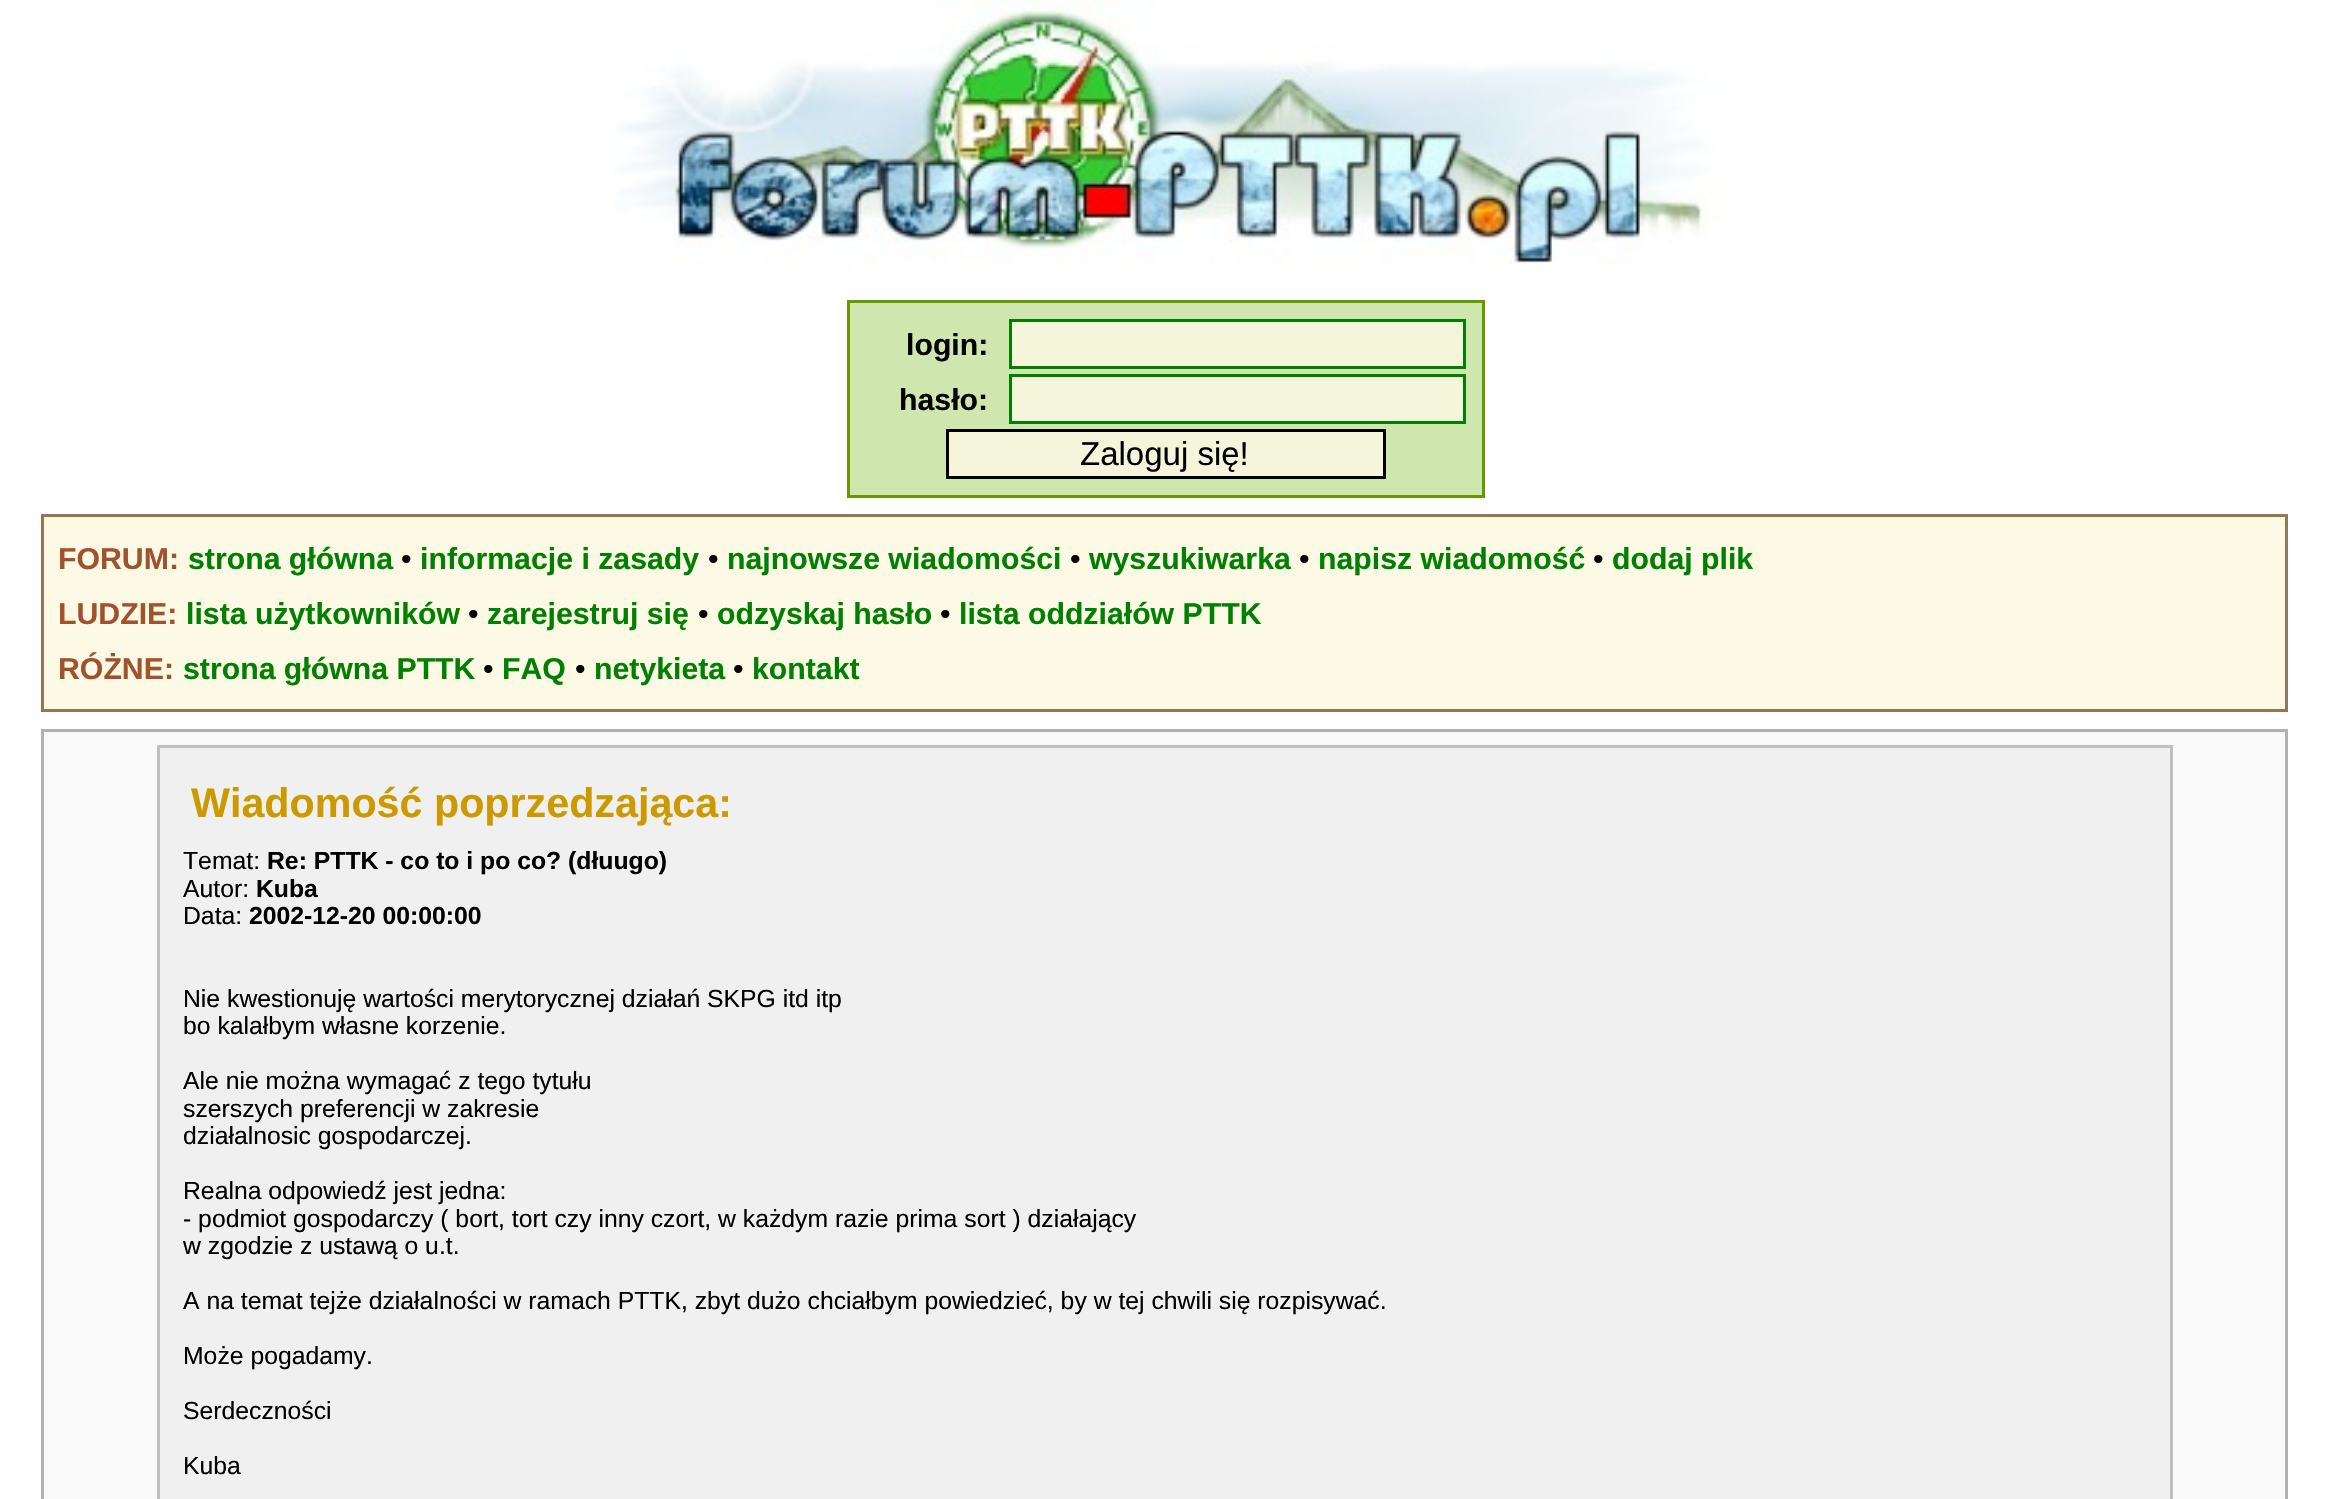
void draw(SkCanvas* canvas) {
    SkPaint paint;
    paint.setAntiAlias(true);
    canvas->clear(0xFFFFFFFF);
    canvas->drawImageRect(SkImages::DeferredFromEncodedData(SkData::MakeFromFileName("img1.png")), SkRect::MakeXYWH(614, 0, 1114, 265), SkSamplingOptions());
    paint.setColor(0xFFCFE6AE);
    canvas->drawRect(SkRect::MakeXYWH(848.5f, 301.5f, 635, 195), paint);
    paint.setStyle(SkPaint::kStroke_Style);
    paint.setStrokeWidth(3);
    paint.setColor(0xFF669900);
    canvas->drawRect(SkRect::MakeXYWH(848.5f, 301.5f, 635, 195), paint);
    SkFont font1(fontMgr->matchFamilyStyle("Liberation Sans", SkFontStyle::Bold()), 30.25f);
    font1.setSubpixel(true);
    paint.setStyle(SkPaint::kFill_Style);
    paint.setColor(0xFF000000);
    canvas->drawString("login:", 906, 355, font1, paint);
    paint.setColor(0xFFF5F5DC);
    canvas->drawRect(SkRect::MakeXYWH(1010.5f, 320.5f, 454, 47), paint);
    paint.setStyle(SkPaint::kStroke_Style);
    paint.setColor(0xFF008000);
    canvas->drawRect(SkRect::MakeXYWH(1010.5f, 320.5f, 454, 47), paint);
    paint.setStyle(SkPaint::kFill_Style);
    paint.setColor(0xFF000000);
    canvas->drawString("hasło:", 899, 410, font1, paint);
    paint.setColor(0xFFF5F5DC);
    canvas->drawRect(SkRect::MakeXYWH(1010.5f, 375.5f, 454, 47), paint);
    paint.setStyle(SkPaint::kStroke_Style);
    paint.setColor(0xFF008000);
    canvas->drawRect(SkRect::MakeXYWH(1010.5f, 375.5f, 454, 47), paint);
    paint.setStyle(SkPaint::kFill_Style);
    paint.setColor(0xFFF5F5DC);
    canvas->drawRect(SkRect::MakeXYWH(947.5f, 430.5f, 437, 47), paint);
    paint.setStyle(SkPaint::kStroke_Style);
    paint.setColor(0xFF000000);
    canvas->drawRect(SkRect::MakeXYWH(947.5f, 430.5f, 437, 47), paint);
    SkFont font2(fontMgr->matchFamilyStyle("Liberation Sans", SkFontStyle::Normal()), 33);
    font2.setSubpixel(true);
    paint.setStyle(SkPaint::kFill_Style);
    canvas->drawString("Zaloguj się!", 1080, 465, font2, paint);
    paint.setColor(0xFFFCF9E4);
    canvas->drawRect(SkRect::MakeXYWH(42.5f, 515.5f, 2244, 195), paint);
    paint.setStyle(SkPaint::kStroke_Style);
    paint.setColor(0xFF957755);
    canvas->drawRect(SkRect::MakeXYWH(42.5f, 515.5f, 2244, 195), paint);
    paint.setStyle(SkPaint::kFill_Style);
    paint.setColor(0xFFA0522D);
    canvas->drawString("FORUM:", 58, 569, font1, paint);
    paint.setColor(0xFF008000);
    canvas->drawString("strona główna", 188, 569, font1, paint);
    SkFont font3(fontMgr->matchFamilyStyle("Liberation Sans", SkFontStyle::Normal()), 30.25f);
    font3.setSubpixel(true);
    paint.setColor(0xFF000000);
    canvas->drawString("•", 401, 569, font3, paint);
    paint.setColor(0xFF008000);
    canvas->drawString("informacje i zasady", 420, 569, font1, paint);
    paint.setColor(0xFF000000);
    canvas->drawString("•", 708, 569, font3, paint);
    paint.setColor(0xFF008000);
    canvas->drawString("najnowsze wiadomości", 727, 569, font1, paint);
    paint.setColor(0xFF000000);
    canvas->drawString("•", 1070, 569, font3, paint);
    paint.setColor(0xFF008000);
    canvas->drawString("wyszukiwarka", 1089, 569, font1, paint);
    paint.setColor(0xFF000000);
    canvas->drawString("•", 1299, 569, font3, paint);
    paint.setColor(0xFF008000);
    canvas->drawString("napisz wiadomość", 1318, 569, font1, paint);
    paint.setColor(0xFF000000);
    canvas->drawString("•", 1593, 569, font3, paint);
    paint.setColor(0xFF008000);
    canvas->drawString("dodaj plik", 1612, 569, font1, paint);
    paint.setColor(0xFFA0522D);
    canvas->drawString("LUDZIE:", 58, 624, font1, paint);
    paint.setColor(0xFF008000);
    canvas->drawString("lista użytkowników", 186, 624, font1, paint);
    paint.setColor(0xFF000000);
    canvas->drawString("•", 468, 624, font3, paint);
    paint.setColor(0xFF008000);
    canvas->drawString("zarejestruj się", 487, 624, font1, paint);
    paint.setColor(0xFF000000);
    canvas->drawString("•", 698, 624, font3, paint);
    paint.setColor(0xFF008000);
    canvas->drawString("odzyskaj hasło", 717, 624, font1, paint);
    paint.setColor(0xFF000000);
    canvas->drawString("•", 940, 624, font3, paint);
    paint.setColor(0xFF008000);
    canvas->drawString("lista oddziałów PTTK", 959, 624, font1, paint);
    paint.setColor(0xFFA0522D);
    canvas->drawString("RÓŻNE:", 58, 679, font1, paint);
    paint.setColor(0xFF008000);
    canvas->drawString("strona główna PTTK", 183, 679, font1, paint);
    paint.setColor(0xFF000000);
    canvas->drawString("•", 483, 679, font3, paint);
    paint.setColor(0xFF008000);
    canvas->drawString("FAQ", 502, 679, font1, paint);
    paint.setColor(0xFF000000);
    canvas->drawString("•", 575, 679, font3, paint);
    paint.setColor(0xFF008000);
    canvas->drawString("netykieta", 594, 679, font1, paint);
    paint.setColor(0xFF000000);
    canvas->drawString("•", 733, 679, font3, paint);
    paint.setColor(0xFF008000);
    canvas->drawString("kontakt", 752, 679, font1, paint);
    paint.setColor(0xFFFAFAFA);
    canvas->drawRect(SkRect::MakeXYWH(42.5f, 730.5f, 2244, 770), paint);
    paint.setStyle(SkPaint::kStroke_Style);
    paint.setColor(0xFFB1B1B1);
    canvas->drawRect(SkRect::MakeXYWH(42.5f, 730.5f, 2244, 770), paint);
    paint.setStyle(SkPaint::kFill_Style);
    paint.setColor(0xFFF0F0F0);
    canvas->drawRect(SkRect::MakeXYWH(158.5f, 746.5f, 2013, 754), paint);
    paint.setStyle(SkPaint::kStroke_Style);
    paint.setColor(0xFFC0C0C0);
    canvas->drawRect(SkRect::MakeXYWH(158.5f, 746.5f, 2013, 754), paint);
    SkFont font4(fontMgr->matchFamilyStyle("Liberation Sans", SkFontStyle::Bold()), 41.25f);
    font4.setSubpixel(true);
    paint.setStyle(SkPaint::kFill_Style);
    paint.setColor(0xFFCC9900);
    canvas->drawString("Wiadomość poprzedzająca:", 191, 817, font4, paint);
    SkFont font5(fontMgr->matchFamilyStyle("Liberation Sans", SkFontStyle::Normal()), 24.75f);
    font5.setSubpixel(true);
    paint.setColor(0xFF000000);
    canvas->drawString("Temat:", 183, 869, font5, paint);
    SkFont font6(fontMgr->matchFamilyStyle("Liberation Sans", SkFontStyle::Bold()), 24.75f);
    font6.setSubpixel(true);
    canvas->drawString("Re: PTTK - co to i po co? (dłuugo)", 267, 869, font6, paint);
    canvas->drawString("Autor:", 183, 897, font5, paint);
    canvas->drawString("Kuba", 256, 897, font6, paint);
    canvas->drawString("Data:", 183, 924, font5, paint);
    canvas->drawString("2002-12-20 00:00:00", 249, 924, font6, paint);
    canvas->drawString("Nie kwestionuję wartości merytorycznej działań SKPG itd itp", 183, 1007, font5, paint);
    canvas->drawString("bo kalałbym własne korzenie.", 183, 1034, font5, paint);
    canvas->drawString("Ale nie można wymagać z tego tytułu", 183, 1089, font5, paint);
    canvas->drawString("szerszych preferencji w zakresie", 183, 1117, font5, paint);
    canvas->drawString("działalnosic gospodarczej.", 183, 1144, font5, paint);
    canvas->drawString("Realna odpowiedź jest jedna:", 183, 1199, font5, paint);
    canvas->drawString("- podmiot gospodarczy ( bort, tort czy inny czort, w każdym razie prima sort ) działający", 183, 1227, font5, paint);
    canvas->drawString("w zgodzie z ustawą o u.t.", 183, 1254, font5, paint);
    canvas->drawString("A na temat tejże działalności w ramach PTTK, zbyt dużo chciałbym powiedzieć, by w tej chwili się rozpisywać.", 183, 1309, font5, paint);
    canvas->drawString("Może pogadamy.", 183, 1364, font5, paint);
    canvas->drawString("Serdeczności", 183, 1419, font5, paint);
    canvas->drawString("Kuba", 183, 1474, font5, paint);
}
